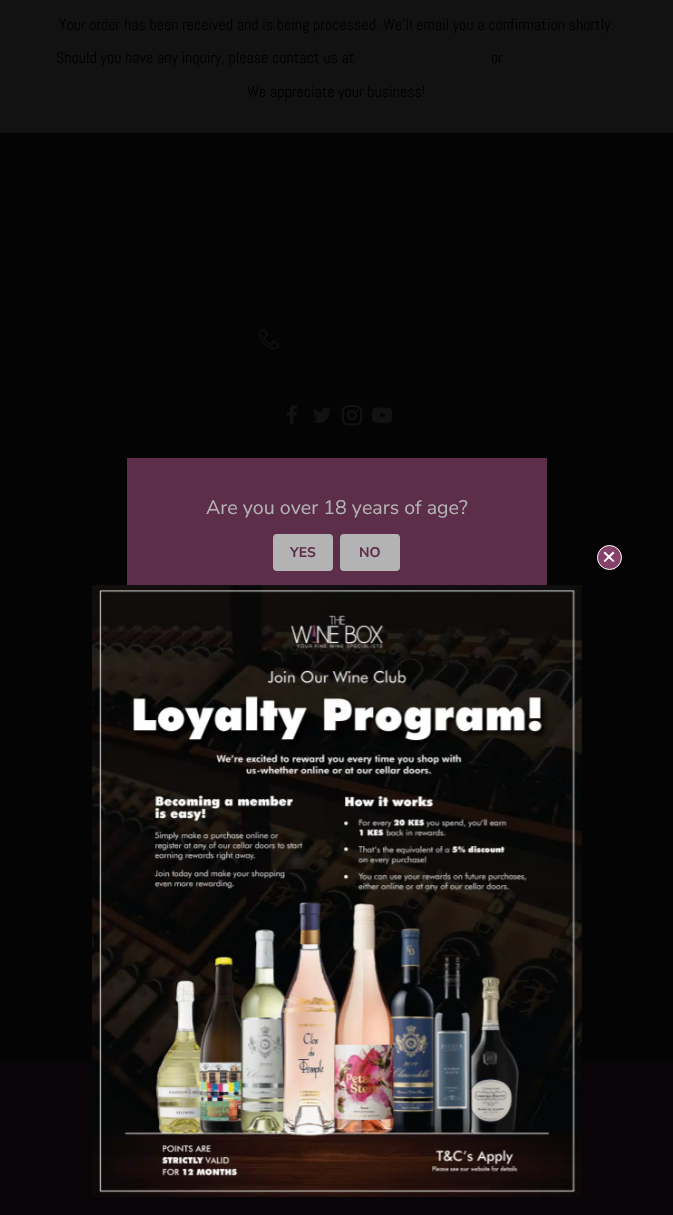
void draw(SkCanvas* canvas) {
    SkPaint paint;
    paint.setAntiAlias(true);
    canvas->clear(0xFF121212);
    SkFont font1(fontMgr->matchFamilyStyle("Abel", SkFontStyle::Normal()), 16);
    font1.setSubpixel(true);
    paint.setColor(0xFF000000);
    canvas->drawString("Your order has been received and is being processed. We'll email you a confirmation shortly.", 59, 30, font1, paint);
    canvas->drawString("Should you have any inquiry, please contact us at", 56, 63, font1, paint);
    canvas->drawString("or", 491, 63, font1, paint);
    canvas->drawString("We appreciate your business!", 247, 97, font1, paint);
    paint.setColor(0xFF040404);
    canvas->drawRect(SkRect::MakeXYWH(0, 133, 673, 929), paint);
    canvas->drawImageRect(SkImages::DeferredFromEncodedData(SkData::MakeFromFileName("img1.png")), SkRect::MakeXYWH(259, 329, 20, 21), SkSamplingOptions());
    canvas->drawImageRect(SkImages::DeferredFromEncodedData(SkData::MakeFromFileName("img2.png")), SkRect::MakeXYWH(287, 405, 10, 19), SkSamplingOptions());
    canvas->drawImageRect(SkImages::DeferredFromEncodedData(SkData::MakeFromFileName("img3.png")), SkRect::MakeXYWH(313, 407, 18, 16), SkSamplingOptions());
    canvas->drawImageRect(SkImages::DeferredFromEncodedData(SkData::MakeFromFileName("img4.png")), SkRect::MakeXYWH(342, 405, 20, 21), SkSamplingOptions());
    canvas->drawImageRect(SkImages::DeferredFromEncodedData(SkData::MakeFromFileName("img5.png")), SkRect::MakeXYWH(372, 407, 20, 16), SkSamplingOptions());
    paint.setColor(0xFF5D2E4A);
    canvas->drawRect(SkRect::MakeXYWH(127, 458, 420, 128), paint);
    SkFont font2(fontMgr->matchFamilyStyle("Nunito Sans", SkFontStyle::Normal()), 19.6f);
    font2.setSubpixel(true);
    paint.setColor(0xFFB3B3B3);
    canvas->drawString("Are you over 18 years of age?", 206, 514, font2, paint);
    canvas->drawRoundRect(SkRect::MakeXYWH(274, 535, 58, 35), 3, 3, paint);
    paint.setStyle(SkPaint::kStroke_Style);
    paint.setStrokeWidth(2);
    canvas->drawRoundRect(SkRect::MakeXYWH(274, 535, 58, 35), 3, 3, paint);
    SkFont font3(fontMgr->matchFamilyStyle("Nunito Sans", SkFontStyle::Bold()), 14);
    font3.setSubpixel(true);
    paint.setStyle(SkPaint::kFill_Style);
    paint.setColor(0xFF5D2E4A);
    canvas->drawString("YES", 290, 557, font3, paint);
    paint.setColor(0xFFB3B3B3);
    canvas->drawRoundRect(SkRect::MakeXYWH(341, 535, 58, 35), 3, 3, paint);
    paint.setStyle(SkPaint::kStroke_Style);
    canvas->drawRoundRect(SkRect::MakeXYWH(341, 535, 58, 35), 3, 3, paint);
    paint.setStyle(SkPaint::kFill_Style);
    paint.setColor(0xFF5D2E4A);
    canvas->drawString("NO", 359, 557, font3, paint);
    paint.setColor(0xFF85416A);
    canvas->drawCircle(609.5f, 557.5f, 12, paint);
    paint.setStyle(SkPaint::kStroke_Style);
    paint.setStrokeWidth(1);
    paint.setColor(0xFFFFFFFF);
    canvas->drawCircle(609.5f, 557.5f, 12, paint);
    paint.setStyle(SkPaint::kFill_Style);
    canvas->drawPath(SkPathBuilder().moveTo(613, 562).lineTo(603.5f, 553).lineTo(605, 551.5f).lineTo(614.5f, 561).close().detach(), paint);
    canvas->drawPath(SkPathBuilder().moveTo(614.5f, 553).lineTo(605, 562).lineTo(603.5f, 561).lineTo(613, 551.5f).close().detach(), paint);
    paint.setColor(0xFF090408);
    canvas->drawRect(SkRect::MakeXYWH(0, 1062, 673, 153), paint);
    canvas->drawImageRect(SkImages::DeferredFromEncodedData(SkData::MakeFromFileName("img6.png")), SkRect::MakeXYWH(92, 585, 490, 612), SkSamplingOptions());
}
